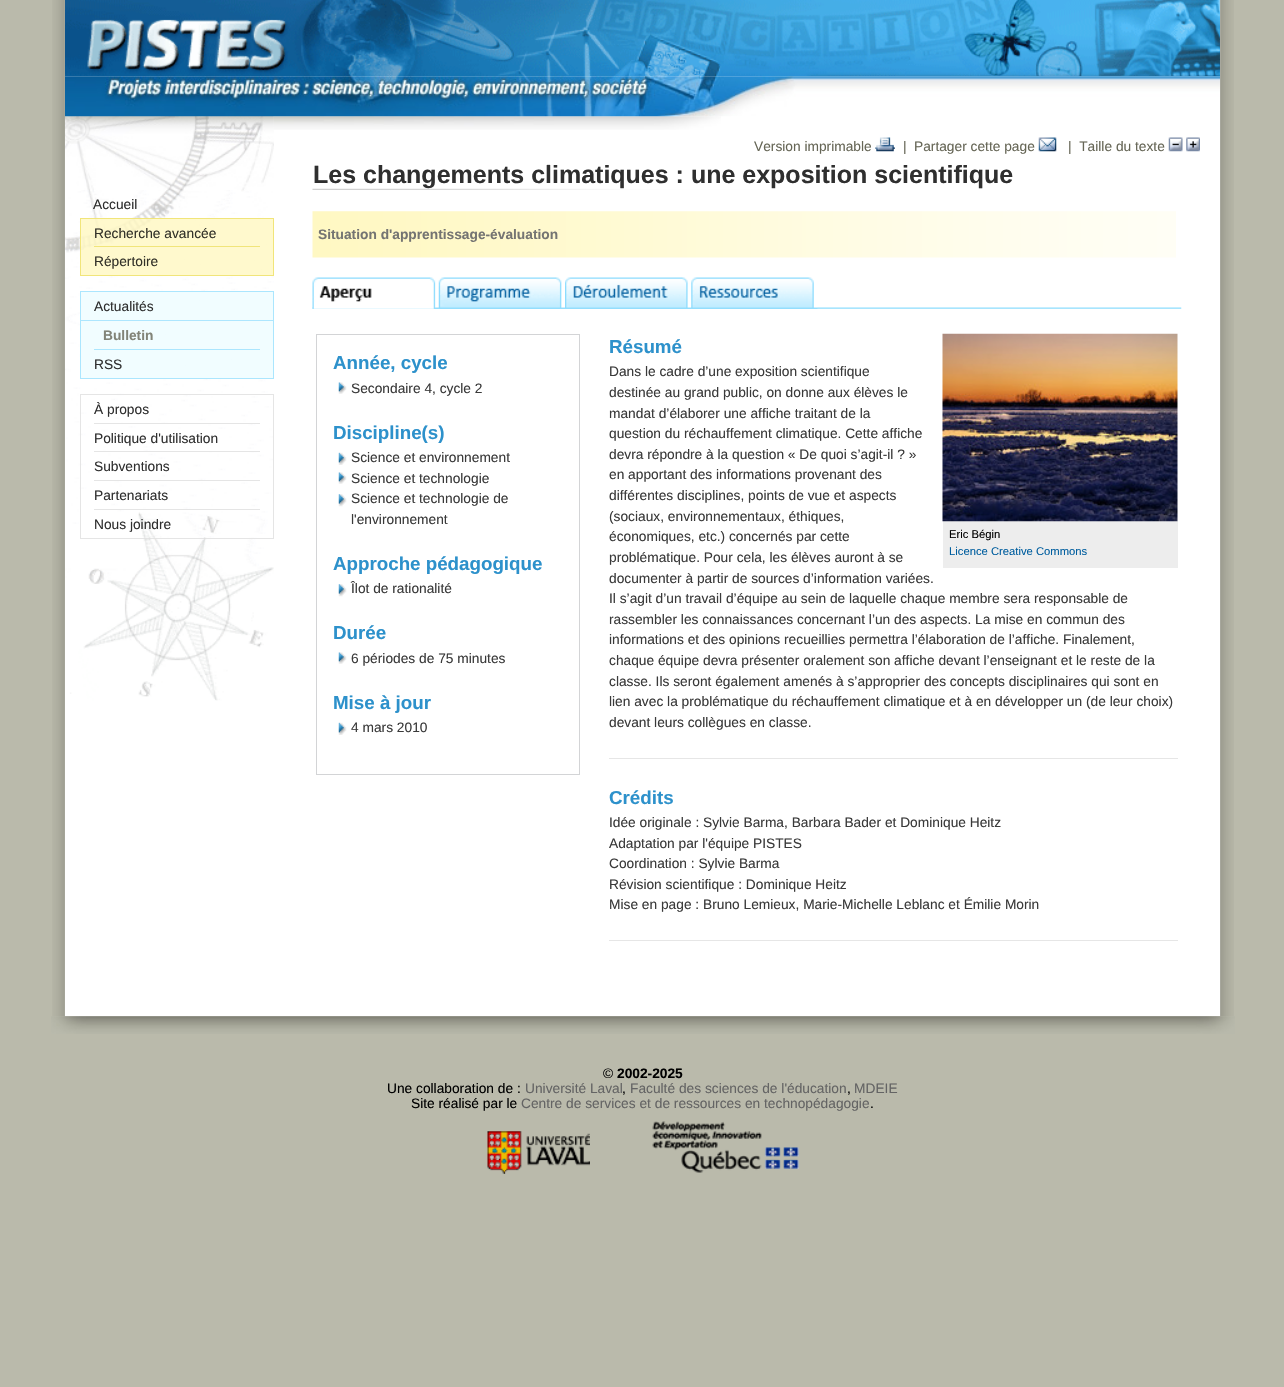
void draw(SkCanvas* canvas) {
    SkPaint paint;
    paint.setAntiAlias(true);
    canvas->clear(0xFFBABAAB);
    canvas->drawImageRect(SkImages::DeferredFromEncodedData(SkData::MakeFromFileName("img1.png")), SkRect::MakeXYWH(52, 0, 1182, 1017), SkSamplingOptions());
    paint.setColor(0xFFFFFFFF);
    canvas->drawRect(SkRect::MakeXYWH(65, 76, 1155, 940), paint);
    canvas->drawImageRect(SkImages::DeferredFromEncodedData(SkData::MakeFromFileName("img2.png")), SkRect::MakeXYWH(65, 0, 1155, 77), SkSamplingOptions());
    canvas->drawImageRect(SkImages::DeferredFromEncodedData(SkData::MakeFromFileName("img4.png")), SkRect::MakeXYWH(65, 116, 209, 585), SkSamplingOptions());
    canvas->drawImageRect(SkImages::DeferredFromEncodedData(SkData::MakeFromFileName("img5.png")), SkRect::MakeXYWH(65, 116, 209, 74), SkSamplingOptions());
    canvas->drawImageRect(SkImages::DeferredFromEncodedData(SkData::MakeFromFileName("img6.png")), SkRect::MakeXYWH(274, 116, 447, 14), SkSamplingOptions());
    canvas->drawImageRect(SkImages::DeferredFromEncodedData(SkData::MakeFromFileName("img3.png")), SkRect::MakeXYWH(65, 76, 1155, 41), SkSamplingOptions());
    SkFont font1(fontMgr->matchFamilyStyle("Liberation Sans", SkFontStyle::Normal()), 13.75f);
    font1.setSubpixel(true);
    paint.setColor(0xFF2F2F2F);
    canvas->drawString("Accueil", 93, 209, font1, paint);
    paint.setColor(0xCCFFF8C1);
    canvas->drawRect(SkRect::MakeXYWH(80, 218, 194, 58), paint);
    paint.setStyle(SkPaint::kStroke_Style);
    paint.setStrokeWidth(1);
    paint.setColor(0xCCEEE065);
    canvas->drawRect(SkRect::MakeXYWH(80.5f, 218.5f, 193, 57), paint);
    paint.setStyle(SkPaint::kFill_Style);
    paint.setColor(0xFF333229);
    canvas->drawString("Recherche avancée", 94, 238, font1, paint);
    paint.setColor(0xFFF1E57A);
    canvas->drawRect(SkRect::MakeXYWH(94, 246, 166, 1), paint);
    paint.setColor(0xFF333229);
    canvas->drawString("Répertoire", 94, 266, font1, paint);
    paint.setColor(0xCCEDFCFF);
    canvas->drawRect(SkRect::MakeXYWH(80.5f, 291.5f, 193, 87), paint);
    paint.setStyle(SkPaint::kStroke_Style);
    paint.setColor(0xFFABE6FE);
    canvas->drawRect(SkRect::MakeXYWH(80.5f, 291.5f, 193, 87), paint);
    paint.setStyle(SkPaint::kFill_Style);
    paint.setColor(0xFF2F2F2F);
    canvas->drawString("Actualités", 94, 311, font1, paint);
    paint.setColor(0xFFADE6FE);
    canvas->drawRect(SkRect::MakeXYWH(81, 320, 192, 1), paint);
    SkFont font2(fontMgr->matchFamilyStyle("Liberation Sans", SkFontStyle::Bold()), 13.75f);
    font2.setSubpixel(true);
    paint.setColor(0xFF828478);
    canvas->drawString("Bulletin", 103, 340, font2, paint);
    paint.setColor(0xFFABE6FE);
    canvas->drawRect(SkRect::MakeXYWH(94, 349, 166, 1), paint);
    paint.setColor(0xFF2F2F2F);
    canvas->drawString("RSS", 94, 369, font1, paint);
    paint.setStyle(SkPaint::kStroke_Style);
    paint.setColor(0xCCDFDFDF);
    canvas->drawRect(SkRect::MakeXYWH(80.5f, 394.5f, 193, 144), paint);
    paint.setStyle(SkPaint::kFill_Style);
    paint.setColor(0xFF2F2F2F);
    canvas->drawString("À propos", 94, 414, font1, paint);
    paint.setColor(0xCCDFDFDF);
    canvas->drawRect(SkRect::MakeXYWH(94, 423, 166, 1), paint);
    paint.setColor(0xFF2F2F2F);
    canvas->drawString("Politique d'utilisation", 94, 443, font1, paint);
    paint.setColor(0xCCDFDFDF);
    canvas->drawRect(SkRect::MakeXYWH(94, 451, 166, 1), paint);
    paint.setColor(0xFF2F2F2F);
    canvas->drawString("Subventions", 94, 471, font1, paint);
    paint.setColor(0xFFE5E5E5);
    canvas->drawRect(SkRect::MakeXYWH(94, 480, 166, 1), paint);
    paint.setColor(0xFF2F2F2F);
    canvas->drawString("Partenariats", 94, 500, font1, paint);
    paint.setColor(0xFFE5E5E5);
    canvas->drawRect(SkRect::MakeXYWH(94, 509, 166, 1), paint);
    paint.setColor(0xFF2F2F2F);
    canvas->drawString("Nous joindre", 94, 529, font1, paint);
    paint.setColor(0xFF666656);
    canvas->drawString("Version imprimable", 754, 151, font1, paint);
    canvas->drawImageRect(SkImages::DeferredFromEncodedData(SkData::MakeFromFileName("img7.png")), SkRect::MakeXYWH(875, 137, 20, 15), SkSamplingOptions());
    canvas->drawString("|", 903, 151, font1, paint);
    canvas->drawString("Partager cette page", 914, 151, font1, paint);
    canvas->drawImageRect(SkImages::DeferredFromEncodedData(SkData::MakeFromFileName("img8.png")), SkRect::MakeXYWH(1038, 137, 19, 15), SkSamplingOptions());
    canvas->drawString("|  Taille du texte", 1068, 151, font1, paint);
    canvas->drawImageRect(SkImages::DeferredFromEncodedData(SkData::MakeFromFileName("img9.png")), SkRect::MakeXYWH(1168, 137, 15, 15), SkSamplingOptions());
    canvas->drawImageRect(SkImages::DeferredFromEncodedData(SkData::MakeFromFileName("img10.png")), SkRect::MakeXYWH(1186, 137, 14, 15), SkSamplingOptions());
    SkFont font3(fontMgr->matchFamilyStyle("Liberation Sans", SkFontStyle::Bold()), 25);
    font3.setSubpixel(true);
    paint.setColor(0xFF2F2F2F);
    canvas->drawString("Les changements climatiques : une exposition scientifique", 313, 183, font3, paint);
    canvas->drawImageRect(SkImages::DeferredFromEncodedData(SkData::MakeFromFileName("img11.png")), SkRect::MakeXYWH(312, 188, 463, 2), SkSamplingOptions());
    canvas->drawImageRect(SkImages::DeferredFromEncodedData(SkData::MakeFromFileName("img12.png")), SkRect::MakeXYWH(312, 211, 864, 47), SkSamplingOptions());
    paint.setColor(0xFF747472);
    canvas->drawString("Situation d'apprentissage-évaluation", 318, 239, font2, paint);
    canvas->drawImageRect(SkImages::DeferredFromEncodedData(SkData::MakeFromFileName("img13.png")), SkRect::MakeXYWH(312, 307, 870, 2), SkSamplingOptions());
    canvas->drawImageRect(SkImages::DeferredFromEncodedData(SkData::MakeFromFileName("img14.png")), SkRect::MakeXYWH(312, 277, 127, 32), SkSamplingOptions());
    canvas->drawImageRect(SkImages::DeferredFromEncodedData(SkData::MakeFromFileName("img15.png")), SkRect::MakeXYWH(438, 277, 127, 32), SkSamplingOptions());
    canvas->drawImageRect(SkImages::DeferredFromEncodedData(SkData::MakeFromFileName("img16.png")), SkRect::MakeXYWH(565, 277, 127, 32), SkSamplingOptions());
    canvas->drawImageRect(SkImages::DeferredFromEncodedData(SkData::MakeFromFileName("img17.png")), SkRect::MakeXYWH(691, 277, 127, 32), SkSamplingOptions());
    paint.setStyle(SkPaint::kStroke_Style);
    paint.setColor(0xFFD3D4D6);
    canvas->drawRect(SkRect::MakeXYWH(316.5f, 334.5f, 263, 440), paint);
    SkFont font4(fontMgr->matchFamilyStyle("Liberation Sans", SkFontStyle::Bold()), 18.75f);
    font4.setSubpixel(true);
    paint.setStyle(SkPaint::kFill_Style);
    paint.setColor(0xFF2D91CB);
    canvas->drawString("Année, cycle", 333, 369, font4, paint);
    canvas->drawImageRect(SkImages::DeferredFromEncodedData(SkData::MakeFromFileName("img18.png")), SkRect::MakeXYWH(338, 382, 9, 12), SkSamplingOptions());
    paint.setColor(0xFF3A3A3A);
    canvas->drawString("Secondaire 4, cycle 2", 351, 393, font1, paint);
    paint.setColor(0xFF2D91CB);
    canvas->drawString("Discipline(s)", 333, 439, font4, paint);
    canvas->drawImageRect(SkImages::DeferredFromEncodedData(SkData::MakeFromFileName("img19.png")), SkRect::MakeXYWH(338, 452, 9, 13), SkSamplingOptions());
    paint.setColor(0xFF3A3A3A);
    canvas->drawString("Science et environnement", 351, 462, font1, paint);
    canvas->drawImageRect(SkImages::DeferredFromEncodedData(SkData::MakeFromFileName("img18.png")), SkRect::MakeXYWH(338, 472, 9, 12), SkSamplingOptions());
    canvas->drawString("Science et technologie", 351, 483, font1, paint);
    canvas->drawImageRect(SkImages::DeferredFromEncodedData(SkData::MakeFromFileName("img20.png")), SkRect::MakeXYWH(338, 494, 9, 13), SkSamplingOptions());
    canvas->drawString("Science et technologie de", 351, 503, font1, paint);
    canvas->drawString("l'environnement", 351, 524, font1, paint);
    paint.setColor(0xFF2D91CB);
    canvas->drawString("Approche pédagogique", 333, 570, font4, paint);
    canvas->drawImageRect(SkImages::DeferredFromEncodedData(SkData::MakeFromFileName("img20.png")), SkRect::MakeXYWH(338, 584, 9, 13), SkSamplingOptions());
    paint.setColor(0xFF3A3A3A);
    canvas->drawString("Îlot de rationalité", 351, 593, font1, paint);
    paint.setColor(0xFF2D91CB);
    canvas->drawString("Durée", 333, 639, font4, paint);
    canvas->drawImageRect(SkImages::DeferredFromEncodedData(SkData::MakeFromFileName("img18.png")), SkRect::MakeXYWH(338, 652, 9, 12), SkSamplingOptions());
    paint.setColor(0xFF3A3A3A);
    canvas->drawString("6 périodes de 75 minutes", 351, 663, font1, paint);
    paint.setColor(0xFF2D91CB);
    canvas->drawString("Mise à jour", 333, 709, font4, paint);
    canvas->drawImageRect(SkImages::DeferredFromEncodedData(SkData::MakeFromFileName("img19.png")), SkRect::MakeXYWH(338, 722, 9, 13), SkSamplingOptions());
    paint.setColor(0xFF3A3A3A);
    canvas->drawString("4 mars 2010", 351, 732, font1, paint);
    paint.setColor(0xFF2D91CB);
    canvas->drawString("Résumé", 609, 353, font4, paint);
    paint.setColor(0xFF3A3A3A);
    canvas->drawString("Dans le cadre d’une exposition scientifique", 609, 376, font1, paint);
    canvas->drawString("destinée au grand public, on donne aux élèves le", 609, 397, font1, paint);
    canvas->drawString("mandat d’élaborer une affiche traitant de la", 609, 418, font1, paint);
    canvas->drawString("question du réchauffement climatique. Cette affiche", 609, 438, font1, paint);
    canvas->drawString("devra répondre à la question « De quoi s’agit-il ? »", 609, 459, font1, paint);
    canvas->drawString("en apportant des informations provenant des", 609, 479, font1, paint);
    canvas->drawString("différentes disciplines, points de vue et aspects", 609, 500, font1, paint);
    canvas->drawString("(sociaux, environnementaux, éthiques,", 609, 521, font1, paint);
    canvas->drawString("économiques, etc.) concernés par cette", 609, 541, font1, paint);
    canvas->drawString("problématique. Pour cela, les élèves auront à se", 609, 562, font1, paint);
    canvas->drawString("documenter à partir de sources d’information variées.", 609, 583, font1, paint);
    paint.setColor(0xFFEDEDED);
    canvas->drawRect(SkRect::MakeXYWH(943, 521, 235, 47), paint);
    canvas->drawImageRect(SkImages::DeferredFromEncodedData(SkData::MakeFromFileName("img21.png")), SkRect::MakeXYWH(942, 333, 236, 189), SkSamplingOptions());
    SkFont font5(fontMgr->matchFamilyStyle("Liberation Sans", SkFontStyle::Normal()), 11.25f);
    font5.setSubpixel(true);
    paint.setColor(0xFF000000);
    canvas->drawString("Eric Bégin", 949, 538, font5, paint);
    paint.setColor(0xFF005E9F);
    canvas->drawString("Licence Creative Commons", 949, 555, font5, paint);
    paint.setColor(0xFF3A3A3A);
    canvas->drawString("Il s’agit d’un travail d’équipe au sein de laquelle chaque membre sera responsable de", 609, 603, font1, paint);
    canvas->drawString("rassembler les connaissances concernant l’un des aspects. La mise en commun des", 609, 624, font1, paint);
    canvas->drawString("informations et des opinions recueillies permettra l’élaboration de l’affiche. Finalement,", 609, 644, font1, paint);
    canvas->drawString("chaque équipe devra présenter oralement son affiche devant l’enseignant et le reste de la", 609, 665, font1, paint);
    canvas->drawString("classe. Ils seront également amenés à s’approprier des concepts disciplinaires qui sont en", 609, 686, font1, paint);
    canvas->drawString("lien avec la problématique du réchauffement climatique et à en développer un (de leur choix)", 609, 706, font1, paint);
    canvas->drawString("devant leurs collègues en classe.", 609, 727, font1, paint);
    paint.setColor(0xFFE6E6E6);
    canvas->drawRect(SkRect::MakeXYWH(609, 758, 569, 1), paint);
    paint.setColor(0xFF2D91CB);
    canvas->drawString("Crédits", 609, 804, font4, paint);
    paint.setColor(0xFF3A3A3A);
    canvas->drawString("Idée originale : Sylvie Barma, Barbara Bader et Dominique Heitz", 609, 827, font1, paint);
    canvas->drawString("Adaptation par l'équipe PISTES", 609, 848, font1, paint);
    canvas->drawString("Coordination : Sylvie Barma", 609, 868, font1, paint);
    canvas->drawString("Révision scientifique : Dominique Heitz", 609, 889, font1, paint);
    canvas->drawString("Mise en page : Bruno Lemieux, Marie-Michelle Leblanc et Émilie Morin", 609, 909, font1, paint);
    paint.setColor(0xFFE6E6E6);
    canvas->drawRect(SkRect::MakeXYWH(609, 940, 569, 1), paint);
    canvas->drawImageRect(SkImages::DeferredFromEncodedData(SkData::MakeFromFileName("img22.png")), SkRect::MakeXYWH(51, 1016, 1184, 18), SkSamplingOptions());
    paint.setColor(0xFF000000);
    canvas->drawString("©", 603, 1078, font1, paint);
    canvas->drawString("2002-2025", 617, 1078, font2, paint);
    canvas->drawString("Une collaboration de :", 387, 1093, font1, paint);
    paint.setColor(0xFF646464);
    canvas->drawString("Université Laval", 525, 1093, font1, paint);
    paint.setColor(0xFF000000);
    canvas->drawString(",", 622, 1093, font1, paint);
    paint.setColor(0xFF646464);
    canvas->drawString("Faculté des sciences de l'éducation", 630, 1093, font1, paint);
    paint.setColor(0xFF000000);
    canvas->drawString(",", 847, 1093, font1, paint);
    paint.setColor(0xFF646464);
    canvas->drawString("MDEIE", 854, 1093, font1, paint);
    paint.setColor(0xFF000000);
    canvas->drawString("Site réalisé par le", 411, 1108, font1, paint);
    paint.setColor(0xFF646464);
    canvas->drawString("Centre de services et de ressources en technopédagogie", 521, 1108, font1, paint);
    paint.setColor(0xFF000000);
    canvas->drawString(".", 870, 1108, font1, paint);
    canvas->drawImageRect(SkImages::DeferredFromEncodedData(SkData::MakeFromFileName("img23.png")), SkRect::MakeXYWH(487, 1131, 103, 43), SkSamplingOptions());
    canvas->drawImageRect(SkImages::DeferredFromEncodedData(SkData::MakeFromFileName("img24.png")), SkRect::MakeXYWH(652, 1121, 147, 52), SkSamplingOptions());
}
